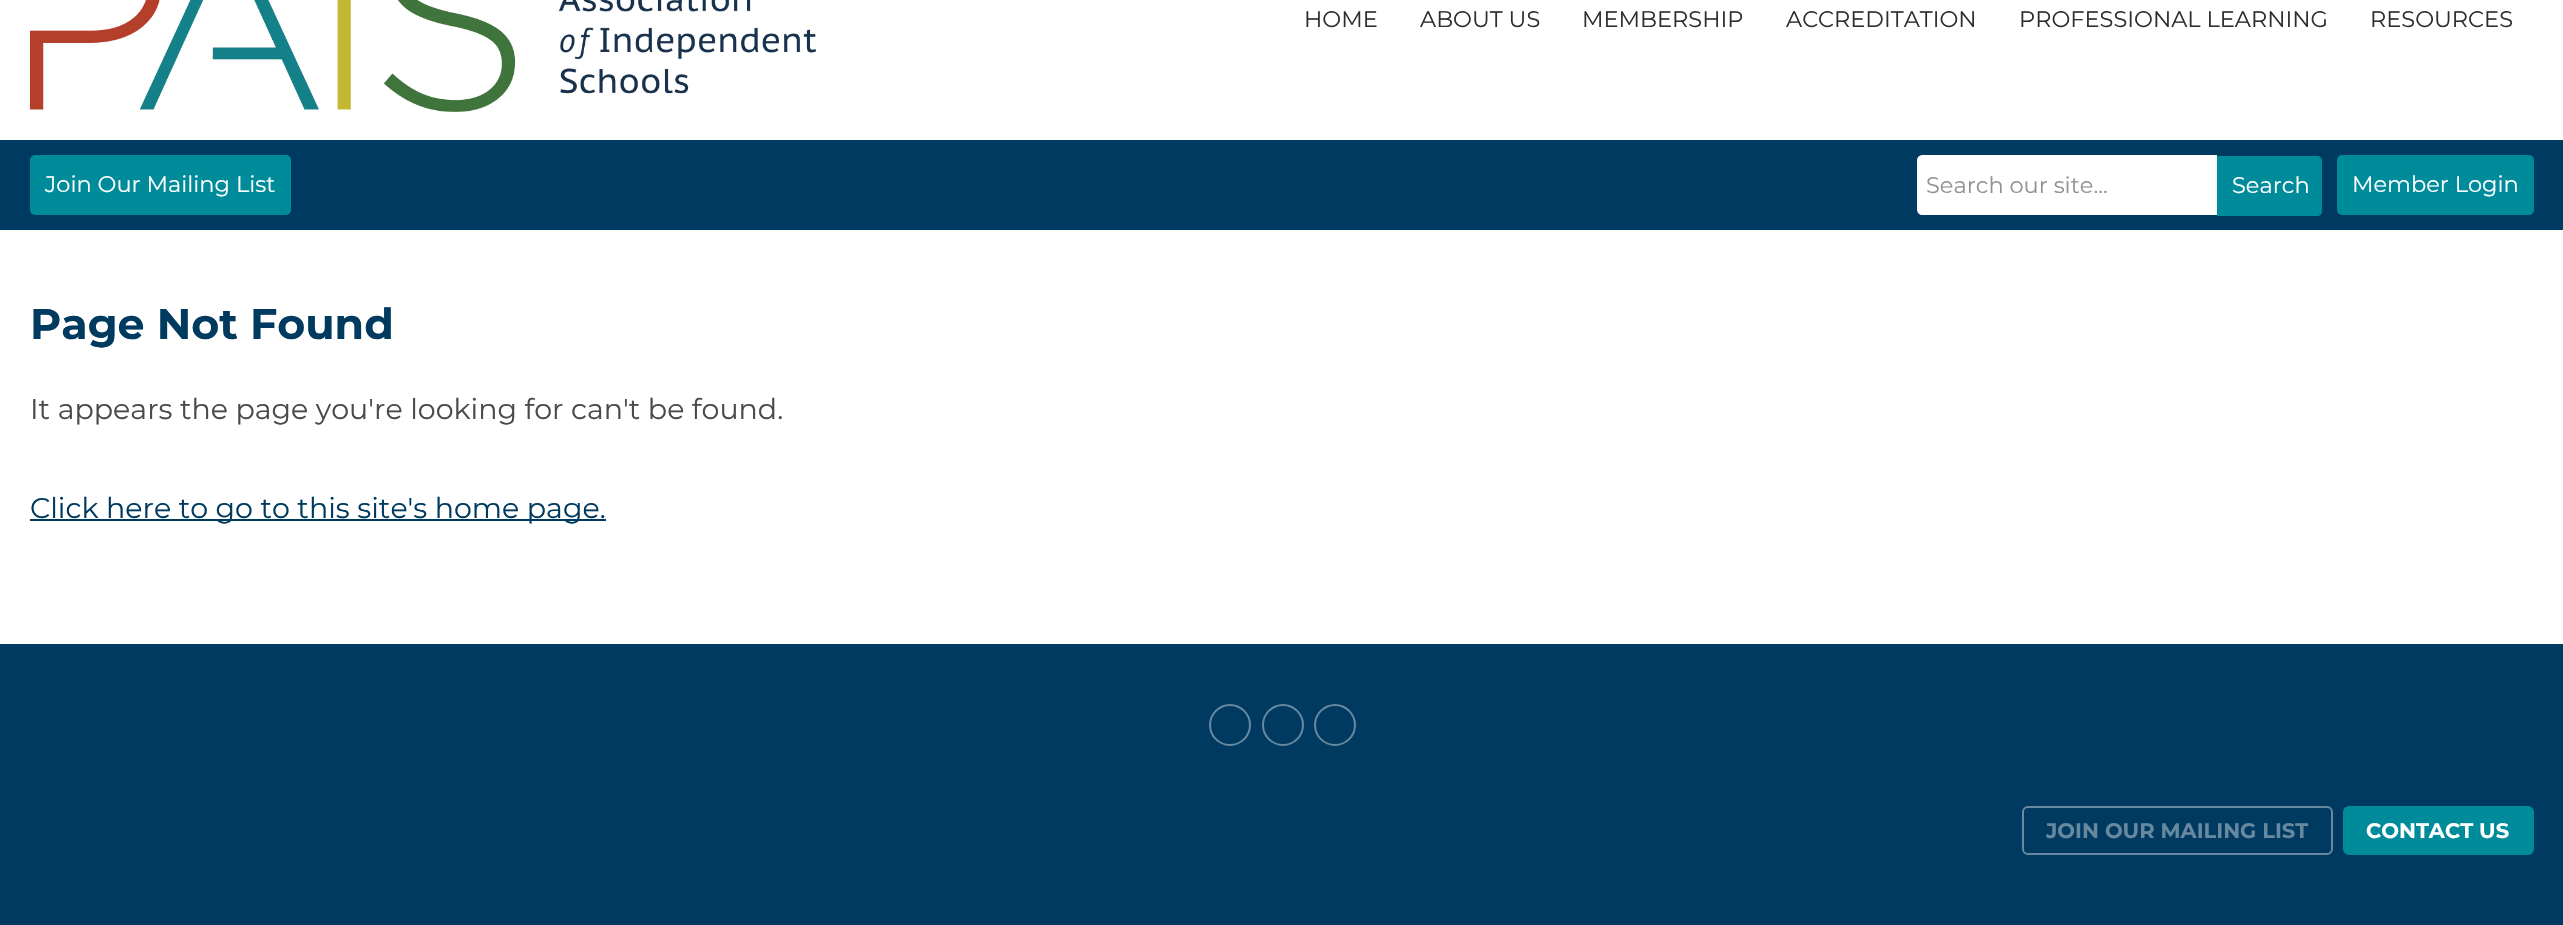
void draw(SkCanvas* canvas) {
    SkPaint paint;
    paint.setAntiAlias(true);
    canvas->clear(0xFFFFFFFF);
    canvas->drawImageRect(SkImages::DeferredFromEncodedData(SkData::MakeFromFileName("img1.png")), SkRect::MakeXYWH(30, 0, 786, 112), SkSamplingOptions());
    SkFont font1(fontMgr->matchFamilyStyle("Montserrat", SkFontStyle::Normal()), 22.5f);
    font1.setSubpixel(true);
    paint.setColor(0xFF2E2E2E);
    canvas->drawString("HOME", 1304, 27, font1, paint);
    canvas->drawString("ABOUT US", 1420, 27, font1, paint);
    canvas->drawString("MEMBERSHIP", 1582, 27, font1, paint);
    canvas->drawString("ACCREDITATION", 1786, 27, font1, paint);
    canvas->drawString("PROFESSIONAL LEARNING", 2019, 27, font1, paint);
    canvas->drawString("RESOURCES", 2370, 27, font1, paint);
    paint.setColor(0xFF003A60);
    canvas->drawRect(SkRect::MakeXYWH(0, 140, 2563, 90), paint);
    paint.setColor(0xFF008B9A);
    canvas->drawRoundRect(SkRect::MakeXYWH(30, 155, 261, 60), 5, 5, paint);
    paint.setColor(0xFFFFFFFF);
    canvas->drawString("Join Our Mailing List", 45, 192, font1, paint);
    canvas->drawPath(SkPathBuilder().moveTo(1922, 156).lineTo(2216, 156).lineTo(2216, 214).lineTo(1922, 214).cubicTo(1920, 214, 1918, 212, 1918, 210).lineTo(1918, 160).cubicTo(1918, 158, 1920, 156, 1922, 156).close().detach(), paint);
    paint.setStyle(SkPaint::kStroke_Style);
    paint.setStrokeWidth(2);
    canvas->drawPath(SkPathBuilder().moveTo(1922, 156).lineTo(2216, 156).lineTo(2216, 214).lineTo(1922, 214).cubicTo(1920, 214, 1918, 212, 1918, 210).lineTo(1918, 160).cubicTo(1918, 158, 1920, 156, 1922, 156).close().detach(), paint);
    paint.setStyle(SkPaint::kFill_Style);
    paint.setColor(0xFF929292);
    canvas->drawString("Search our site...", 1926, 193, font1, paint);
    paint.setColor(0xFF008B9A);
    canvas->drawPath(SkPathBuilder().moveTo(2217, 156).lineTo(2317, 156).cubicTo(2320, 156, 2322, 158, 2322, 161).lineTo(2322, 211).cubicTo(2322, 214, 2320, 216, 2317, 216).lineTo(2217, 216).close().detach(), paint);
    paint.setColor(0xFFFFFFFF);
    canvas->drawString("Search", 2232, 193, font1, paint);
    paint.setColor(0xFF008B9A);
    canvas->drawRoundRect(SkRect::MakeXYWH(2337, 155, 197, 60), 5, 5, paint);
    paint.setColor(0xFFFFFFFF);
    canvas->drawString("Member Login", 2352, 192, font1, paint);
    SkFont font2(fontMgr->matchFamilyStyle("Montserrat", SkFontStyle::Bold()), 42.75f);
    font2.setSubpixel(true);
    paint.setColor(0xFF003A5F);
    canvas->drawString("Page Not Found", 30, 339, font2, paint);
    SkFont font3(fontMgr->matchFamilyStyle("Montserrat", SkFontStyle::Normal()), 28.5f);
    font3.setSubpixel(true);
    paint.setColor(0xFF4A4A4A);
    canvas->drawString("It appears the page you're looking for can't be found.", 30, 419, font3, paint);
    paint.setColor(0xFF003A5F);
    canvas->drawRect(SkRect::MakeXYWH(30, 519, 576, 2), paint);
    canvas->drawString("Click here to go to this site's home page.", 30, 518, font3, paint);
    paint.setColor(0xFF003A60);
    canvas->drawRect(SkRect::MakeXYWH(0, 644, 2563, 281), paint);
    paint.setStyle(SkPaint::kStroke_Style);
    paint.setColor(0xFF6689A0);
    canvas->drawCircle(1230, 725, 20, paint);
    canvas->drawCircle(1283, 725, 20, paint);
    canvas->drawCircle(1335, 725, 20, paint);
    canvas->drawRoundRect(SkRect::MakeXYWH(2023, 807, 309, 47), 5, 5, paint);
    SkFont font4(fontMgr->matchFamilyStyle("Montserrat", SkFontStyle::Bold()), 21);
    font4.setSubpixel(true);
    paint.setStyle(SkPaint::kFill_Style);
    canvas->drawString("JOIN OUR MAILING LIST", 2046, 838, font4, paint);
    paint.setColor(0xFF008B9A);
    canvas->drawRoundRect(SkRect::MakeXYWH(2344, 807, 189, 47), 5, 5, paint);
    paint.setStyle(SkPaint::kStroke_Style);
    canvas->drawRoundRect(SkRect::MakeXYWH(2344, 807, 189, 47), 5, 5, paint);
    paint.setStyle(SkPaint::kFill_Style);
    paint.setColor(0xFFFFFFFF);
    canvas->drawString("CONTACT US", 2366, 838, font4, paint);
}
